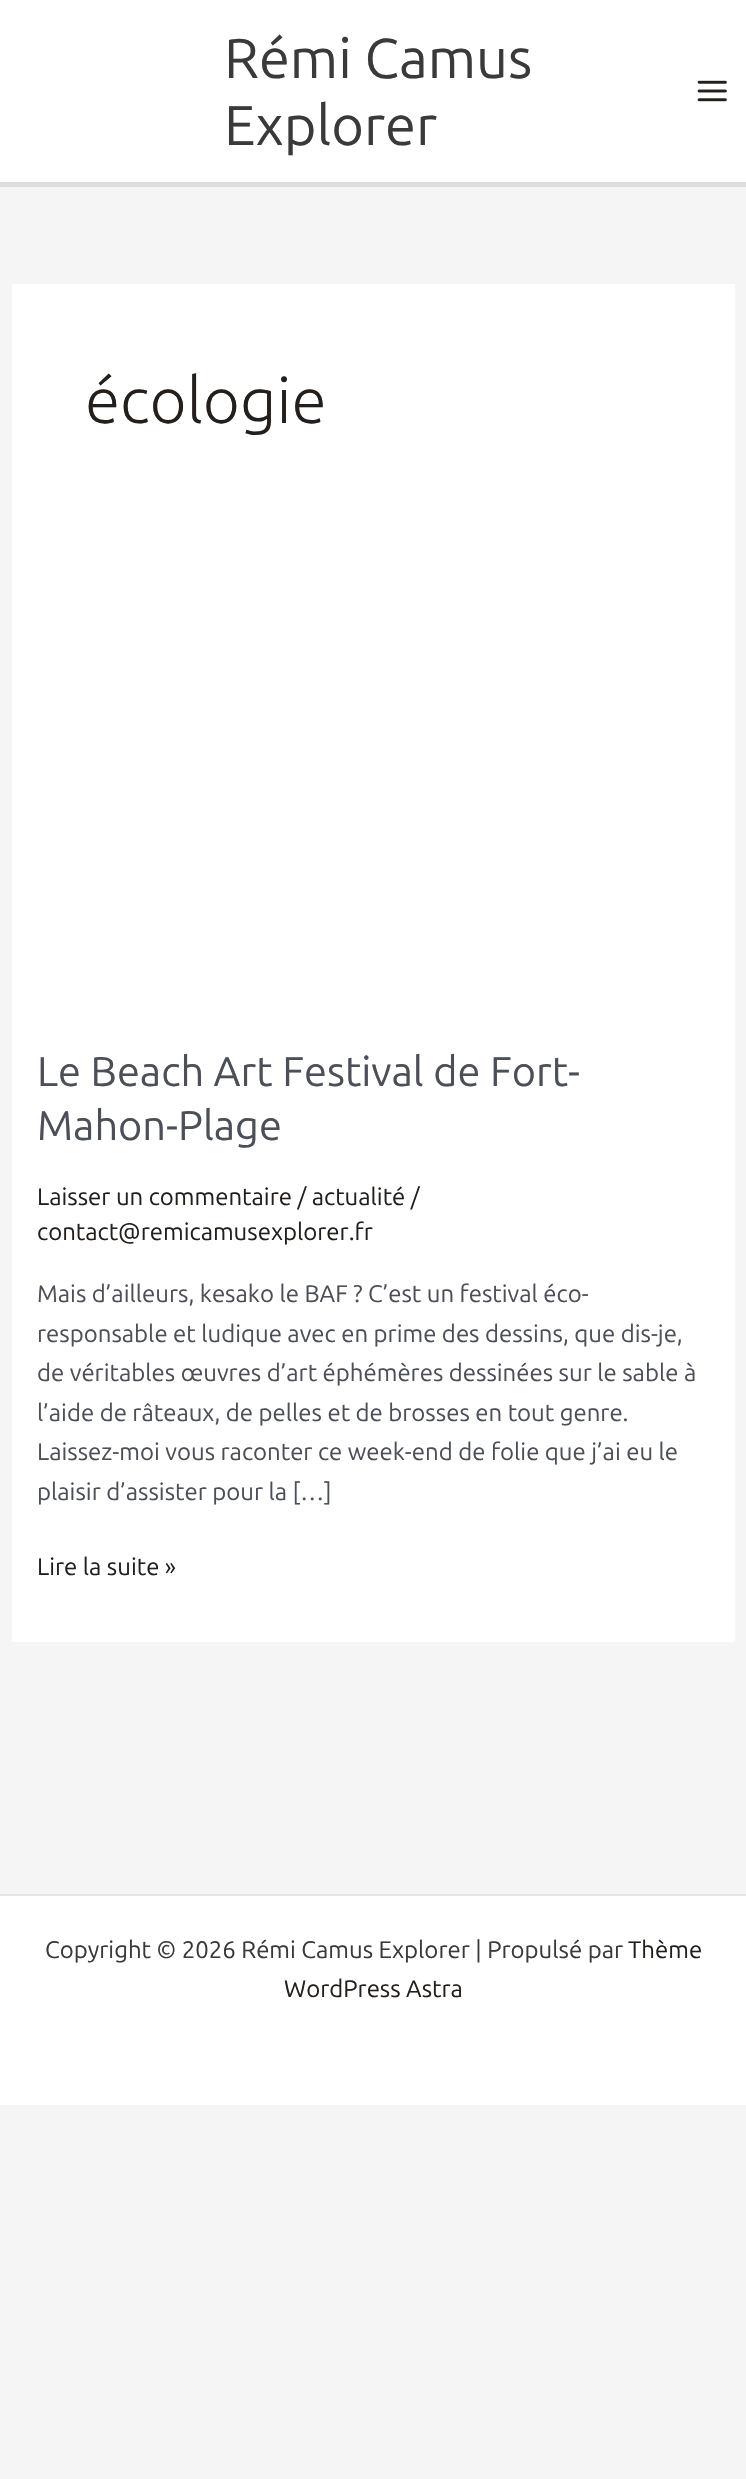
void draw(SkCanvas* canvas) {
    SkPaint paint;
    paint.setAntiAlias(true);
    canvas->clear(0xFFF5F5F5);
    paint.setColor(0xFFFFFFFF);
    canvas->drawRect(SkRect::MakeXYWH(0, 0, 746, 182), paint);
    paint.setColor(0xFFDDDDDD);
    canvas->drawRect(SkRect::MakeXYWH(0, 182, 746, 5), paint);
    SkFont font1(fontMgr->matchFamilyStyle("Ubuntu", SkFontStyle::Normal()), 56);
    font1.setSubpixel(true);
    paint.setColor(0xFF3A3A3A);
    canvas->drawString("Rémi Camus", 224, 78, font1, paint);
    canvas->drawString("Explorer", 224, 145, font1, paint);
    canvas->drawImageRect(SkImages::DeferredFromEncodedData(SkData::MakeFromFileName("img1.png")), SkRect::MakeXYWH(697, 80, 30, 22), SkSamplingOptions());
    paint.setColor(0xFFFFFFFF);
    canvas->drawRect(SkRect::MakeXYWH(12, 284, 723, 1358), paint);
    SkFont font2(fontMgr->matchFamilyStyle("Ubuntu", SkFontStyle(300, SkFontStyle::kNormal_Width, SkFontStyle::kUpright_Slant)), 64);
    font2.setSubpixel(true);
    paint.setColor(0xFF251F1B);
    canvas->drawString("écologie", 85, 423, font2, paint);
    SkFont font3(fontMgr->matchFamilyStyle("Ubuntu", SkFontStyle::Normal()), 41.5f);
    font3.setSubpixel(true);
    paint.setColor(0xFF4B4F58);
    canvas->drawString("Le Beach Art Festival de Fort-", 37, 1086, font3, paint);
    canvas->drawString("Mahon-Plage", 37, 1140, font3, paint);
    SkFont font4(fontMgr->matchFamilyStyle("Ubuntu", SkFontStyle::Normal()), 23.95f);
    font4.setSubpixel(true);
    paint.setColor(0xFF251F1B);
    canvas->drawString("Laisser un commentaire / actualité /", 37, 1205, font4, paint);
    canvas->drawString("contact@remicamusexplorer.fr", 37, 1240, font4, paint);
    paint.setColor(0xFF4B4F58);
    canvas->drawString("Mais d’ailleurs, kesako le BAF ? C’est un festival éco-", 37, 1302, font4, paint);
    canvas->drawString("responsable et ludique avec en prime des dessins, que dis-je,", 37, 1342, font4, paint);
    canvas->drawString("de véritables œuvres d’art éphémères dessinées sur le sable à", 37, 1381, font4, paint);
    canvas->drawString("l’aide de râteaux, de pelles et de brosses en tout genre.", 37, 1421, font4, paint);
    canvas->drawString("Laissez-moi vous raconter ce week-end de folie que j’ai eu le", 37, 1460, font4, paint);
    canvas->drawString("plaisir d’assister pour la […]", 37, 1500, font4, paint);
    paint.setColor(0xFF251F1B);
    canvas->drawString("Lire la suite »", 37, 1575, font4, paint);
    paint.setColor(0xFFFFFFFF);
    canvas->drawRect(SkRect::MakeXYWH(0, 1896, 746, 209), paint);
    paint.setColor(0xFFE5E5E5);
    canvas->drawRect(SkRect::MakeXYWH(0, 1894, 746, 2), paint);
    paint.setColor(0xFF3A3A3A);
    canvas->drawString("Copyright © 2026 Rémi Camus Explorer | Propulsé par", 45, 1958, font4, paint);
    paint.setColor(0xFF251F1B);
    canvas->drawString("Thème", 628, 1958, font4, paint);
    canvas->drawString("WordPress Astra", 284, 1997, font4, paint);
}
